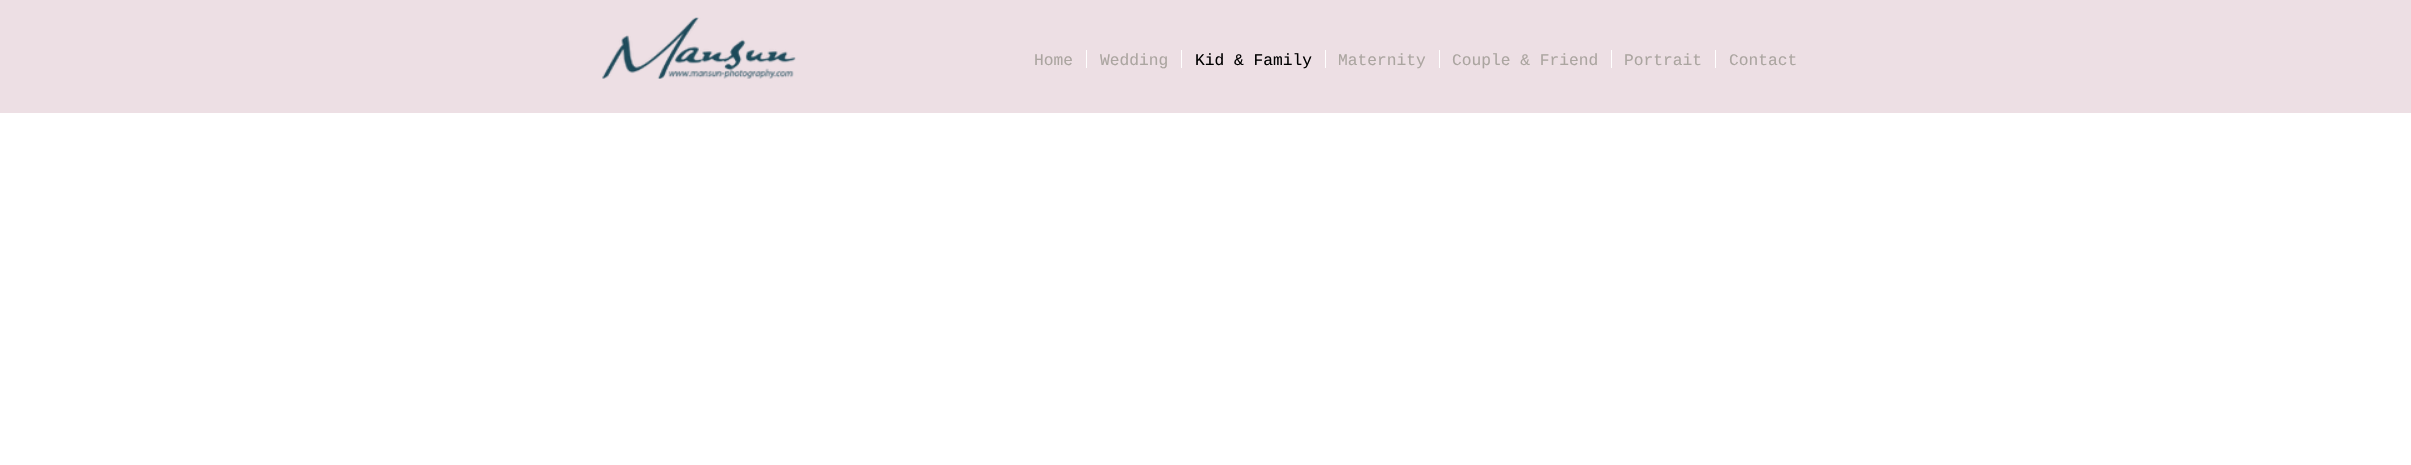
void draw(SkCanvas* canvas) {
    SkPaint paint;
    paint.setAntiAlias(true);
    canvas->clear(0xFFEDDFE4);
    canvas->drawImageRect(SkImages::DeferredFromEncodedData(SkData::MakeFromFileName("img1.png")), SkRect::MakeXYWH(602, 17, 194, 62), SkSamplingOptions());
    SkFont font1(fontMgr->matchFamilyStyle("Liberation Mono", SkFontStyle::Normal()), 16.25f);
    font1.setSubpixel(true);
    paint.setColor(0xFFABA5A0);
    canvas->drawString("Home", 1034, 65, font1, paint);
    paint.setColor(0xFFFFFFFF);
    canvas->drawRect(SkRect::MakeXYWH(1086, 50, 1, 18), paint);
    paint.setColor(0xFFABA5A0);
    canvas->drawString("Wedding", 1100, 65, font1, paint);
    paint.setColor(0xFFFFFFFF);
    canvas->drawRect(SkRect::MakeXYWH(1181, 50, 1, 18), paint);
    paint.setColor(0xFF000000);
    canvas->drawString("Kid & Family", 1195, 65, font1, paint);
    paint.setColor(0xFFFFFFFF);
    canvas->drawRect(SkRect::MakeXYWH(1325, 50, 1, 18), paint);
    paint.setColor(0xFFABA5A0);
    canvas->drawString("Maternity", 1338, 65, font1, paint);
    paint.setColor(0xFFFFFFFF);
    canvas->drawRect(SkRect::MakeXYWH(1439, 50, 1, 18), paint);
    paint.setColor(0xFFABA5A0);
    canvas->drawString("Couple & Friend", 1452, 65, font1, paint);
    paint.setColor(0xFFFFFFFF);
    canvas->drawRect(SkRect::MakeXYWH(1611, 50, 1, 18), paint);
    paint.setColor(0xFFABA5A0);
    canvas->drawString("Portrait", 1624, 65, font1, paint);
    paint.setColor(0xFFFFFFFF);
    canvas->drawRect(SkRect::MakeXYWH(1715, 50, 1, 18), paint);
    paint.setColor(0xFFABA5A0);
    canvas->drawString("Contact", 1729, 65, font1, paint);
    paint.setColor(0xFFFFFFFF);
    canvas->drawRect(SkRect::MakeXYWH(0, 113, 2411, 352), paint);
}
